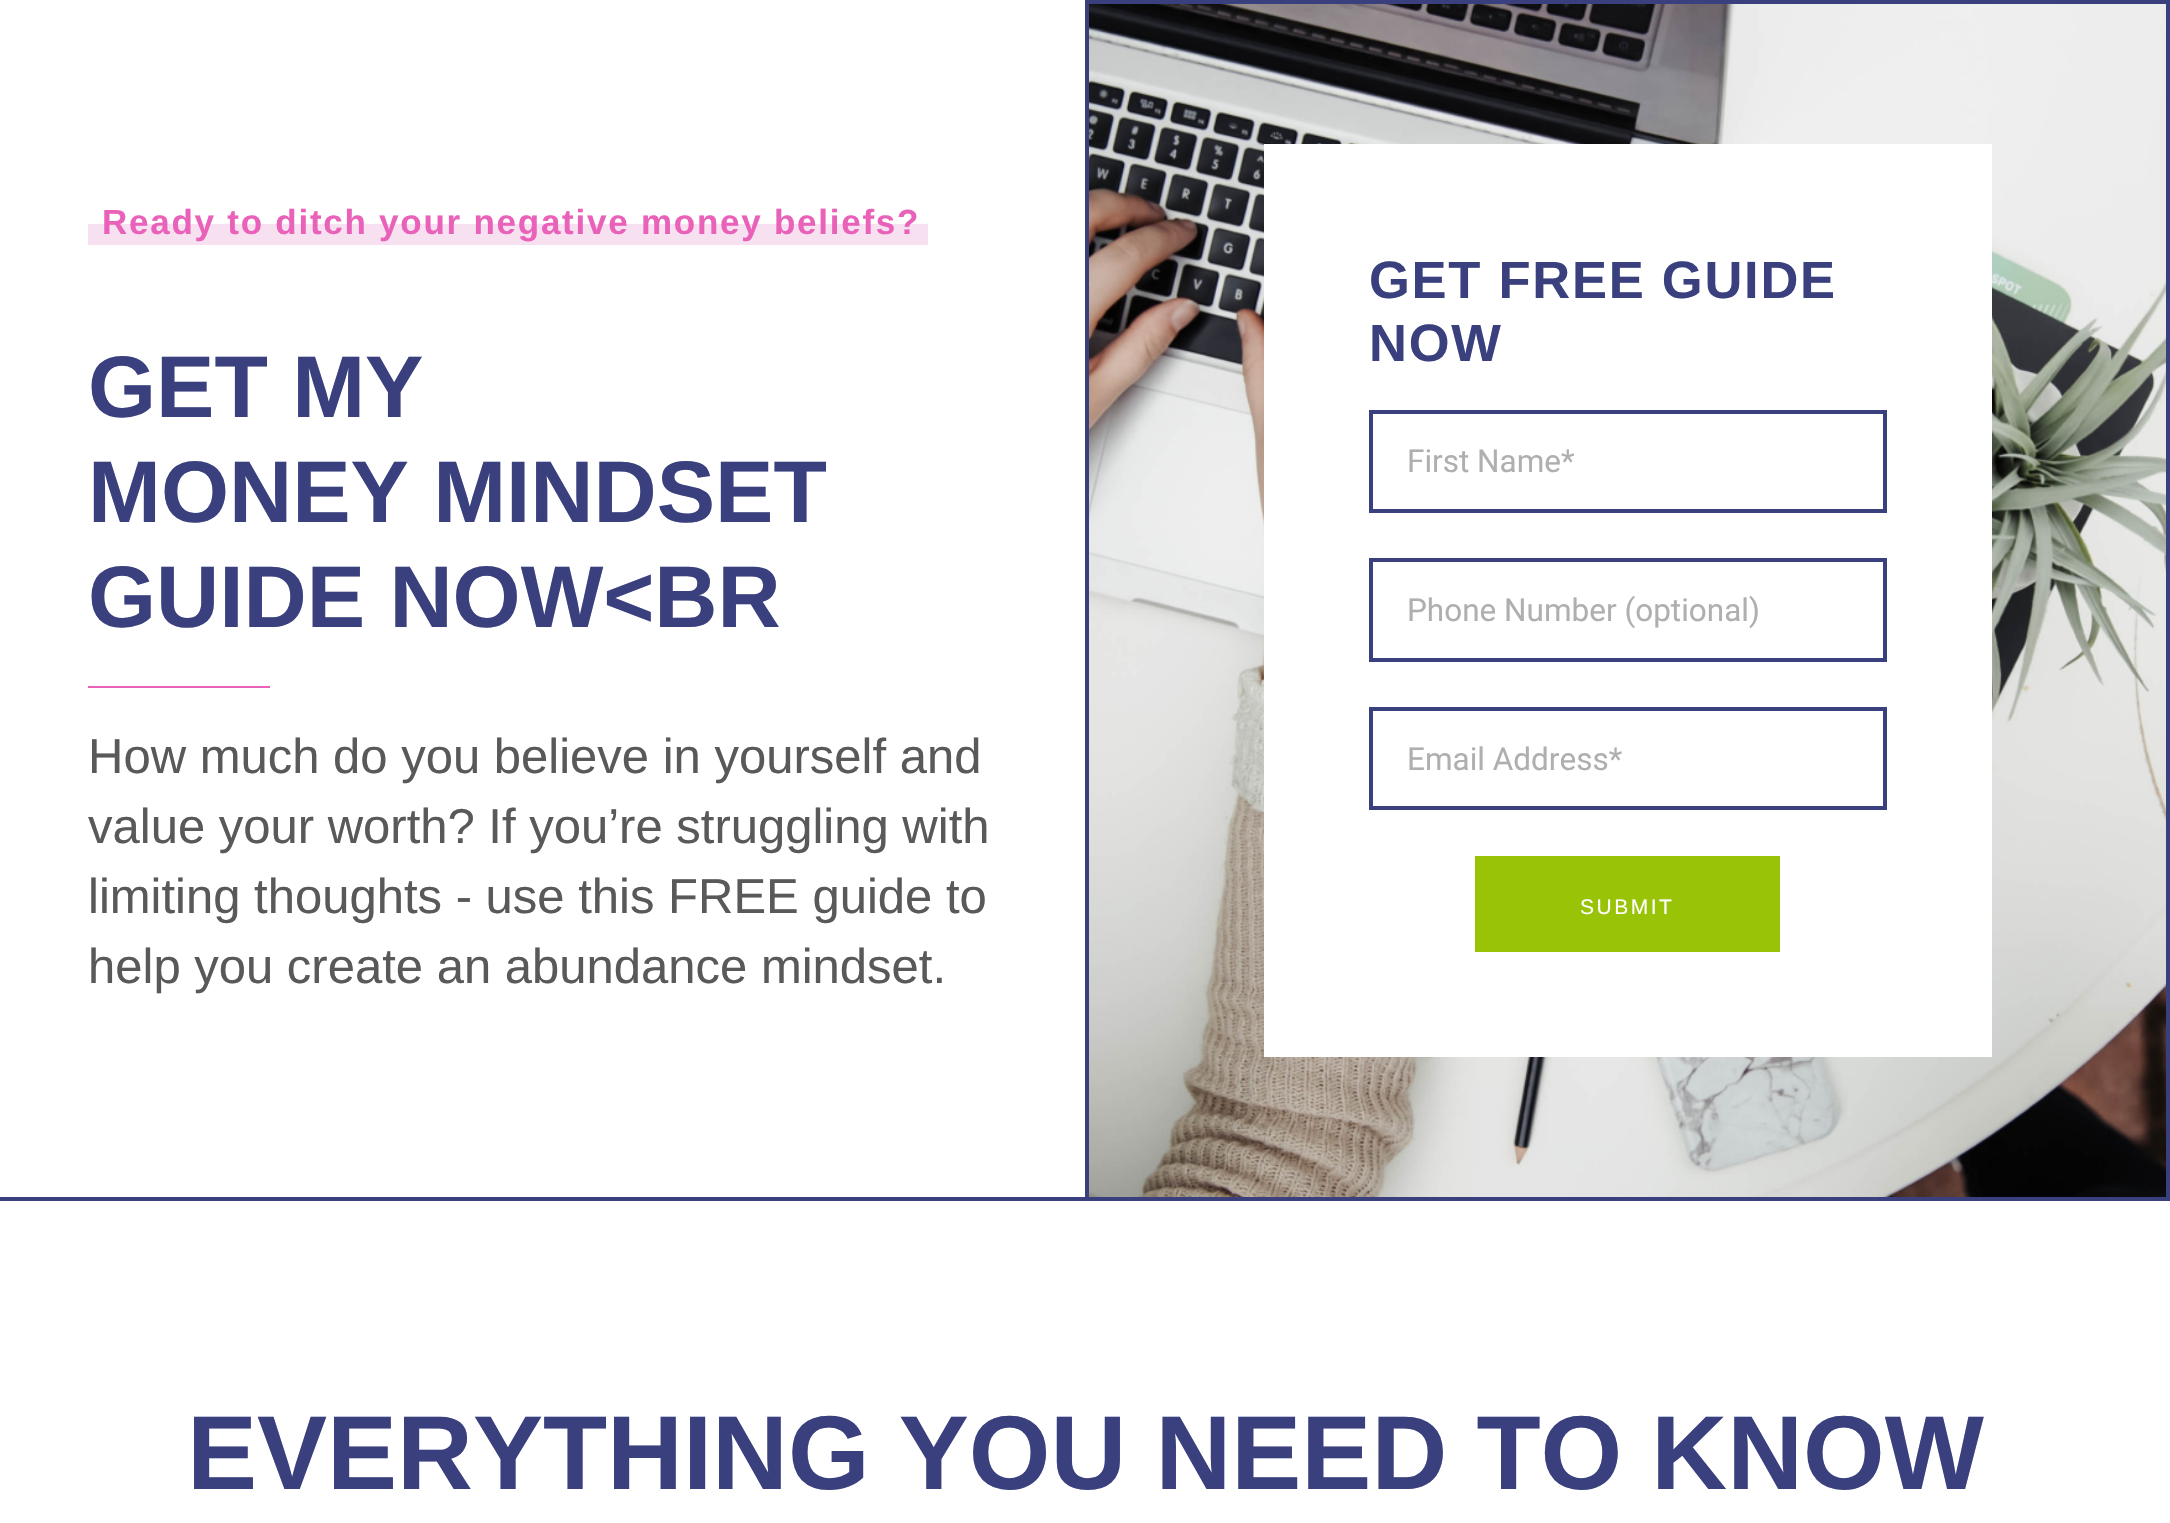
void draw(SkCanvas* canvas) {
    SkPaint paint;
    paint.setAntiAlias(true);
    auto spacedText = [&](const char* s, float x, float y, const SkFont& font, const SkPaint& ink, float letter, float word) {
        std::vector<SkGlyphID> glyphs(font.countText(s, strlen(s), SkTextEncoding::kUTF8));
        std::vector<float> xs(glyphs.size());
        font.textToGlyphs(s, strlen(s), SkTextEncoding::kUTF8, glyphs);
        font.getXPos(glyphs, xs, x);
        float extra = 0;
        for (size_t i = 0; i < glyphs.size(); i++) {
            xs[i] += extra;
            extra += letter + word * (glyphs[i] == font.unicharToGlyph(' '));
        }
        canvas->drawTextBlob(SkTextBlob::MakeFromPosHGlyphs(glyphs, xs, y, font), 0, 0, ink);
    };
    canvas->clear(0xFFFFFFFF);
    paint.setColor(0xFF3A407E);
    canvas->drawRect(SkRect::MakeXYWH(0, 1197, 1085, 4), paint);
    paint.setColor(0xFFF7E1F0);
    canvas->drawRect(SkRect::MakeXYWH(88, 224, 840, 21), paint);
    SkFont font1(fontMgr->matchFamilyStyle("Liberation Sans", SkFontStyle::Bold()), 35);
    font1.setSubpixel(true);
    paint.setColor(0xFFEA61B9);
    spacedText("Ready to ditch your negative money beliefs?", 102, 234, font1, paint, 1.75f, 0);
    SkFont font2(fontMgr->matchFamilyStyle("Liberation Sans", SkFontStyle::Bold()), 87.5f);
    font2.setSubpixel(true);
    paint.setColor(0xFF3A407E);
    canvas->drawString("GET MY", 88, 417, font2, paint);
    canvas->drawString("MONEY MINDSET", 88, 522, font2, paint);
    canvas->drawString("GUIDE NOW<BR", 88, 627, font2, paint);
    paint.setColor(0xFFEA61B9);
    canvas->drawRect(SkRect::MakeXYWH(88, 686, 182, 2), paint);
    SkFont font3(fontMgr->matchFamilyStyle("Liberation Sans", SkFontStyle::Normal()), 49);
    font3.setSubpixel(true);
    paint.setColor(0xFF595959);
    canvas->drawString("How much do you believe in yourself and", 88, 773, font3, paint);
    canvas->drawString("value your worth? If you’re struggling with", 88, 843, font3, paint);
    canvas->drawString("limiting thoughts - use this FREE guide to", 88, 913, font3, paint);
    canvas->drawString("help you create an abundance mindset.", 88, 983, font3, paint);
    canvas->drawImageRect(SkImages::DeferredFromEncodedData(SkData::MakeFromFileName("img1.png")), SkRect::MakeXYWH(1089, 4, 1077, 1193), SkSamplingOptions());
    paint.setStyle(SkPaint::kStroke_Style);
    paint.setStrokeWidth(4);
    paint.setColor(0xFF3A407E);
    canvas->drawRect(SkRect::MakeXYWH(1087, 2, 1081, 1197), paint);
    paint.setStyle(SkPaint::kFill_Style);
    paint.setColor(0xFFFFFFFF);
    canvas->drawRect(SkRect::MakeXYWH(1264, 144, 728, 913), paint);
    SkFont font4(fontMgr->matchFamilyStyle("Liberation Sans", SkFontStyle::Bold()), 52.5f);
    font4.setSubpixel(true);
    paint.setColor(0xFF3A407E);
    spacedText("GET FREE GUIDE", 1369, 298, font4, paint, 1.75f, 0);
    spacedText("NOW", 1369, 361, font4, paint, 1.75f, 0);
    paint.setStyle(SkPaint::kStroke_Style);
    canvas->drawRect(SkRect::MakeXYWH(1371, 412, 514, 99), paint);
    SkFont font5(fontMgr->matchFamilyStyle("Roboto", SkFontStyle::Normal()), 31.5f);
    font5.setSubpixel(true);
    paint.setStyle(SkPaint::kFill_Style);
    paint.setColor(0xFFAFAFAF);
    canvas->drawString("First Name*", 1407, 472, font5, paint);
    paint.setStyle(SkPaint::kStroke_Style);
    paint.setColor(0xFF3A407E);
    canvas->drawRect(SkRect::MakeXYWH(1371, 560, 514, 100), paint);
    paint.setStyle(SkPaint::kFill_Style);
    paint.setColor(0xFFAFAFAF);
    canvas->drawString("Phone Number (optional)", 1407, 621, font5, paint);
    paint.setStyle(SkPaint::kStroke_Style);
    paint.setColor(0xFF3A407E);
    canvas->drawRect(SkRect::MakeXYWH(1371, 709, 514, 99), paint);
    paint.setStyle(SkPaint::kFill_Style);
    paint.setColor(0xFFAFAFAF);
    canvas->drawString("Email Address*", 1407, 770, font5, paint);
    paint.setColor(0xFF99C307);
    canvas->drawRect(SkRect::MakeXYWH(1475, 856, 305, 96), paint);
    SkFont font6(fontMgr->matchFamilyStyle("Liberation Sans", SkFontStyle::Normal()), 21);
    font6.setSubpixel(true);
    paint.setColor(0xFFFFFFFF);
    spacedText("SUBMIT", 1580, 914, font6, paint, 2.5f, 0);
    SkFont font7(fontMgr->matchFamilyStyle("Liberation Sans", SkFontStyle::Bold()), 105);
    font7.setSubpixel(true);
    paint.setColor(0xFF3A407E);
    canvas->drawString("EVERYTHING YOU NEED TO KNOW", 187, 1489, font7, paint);
}
